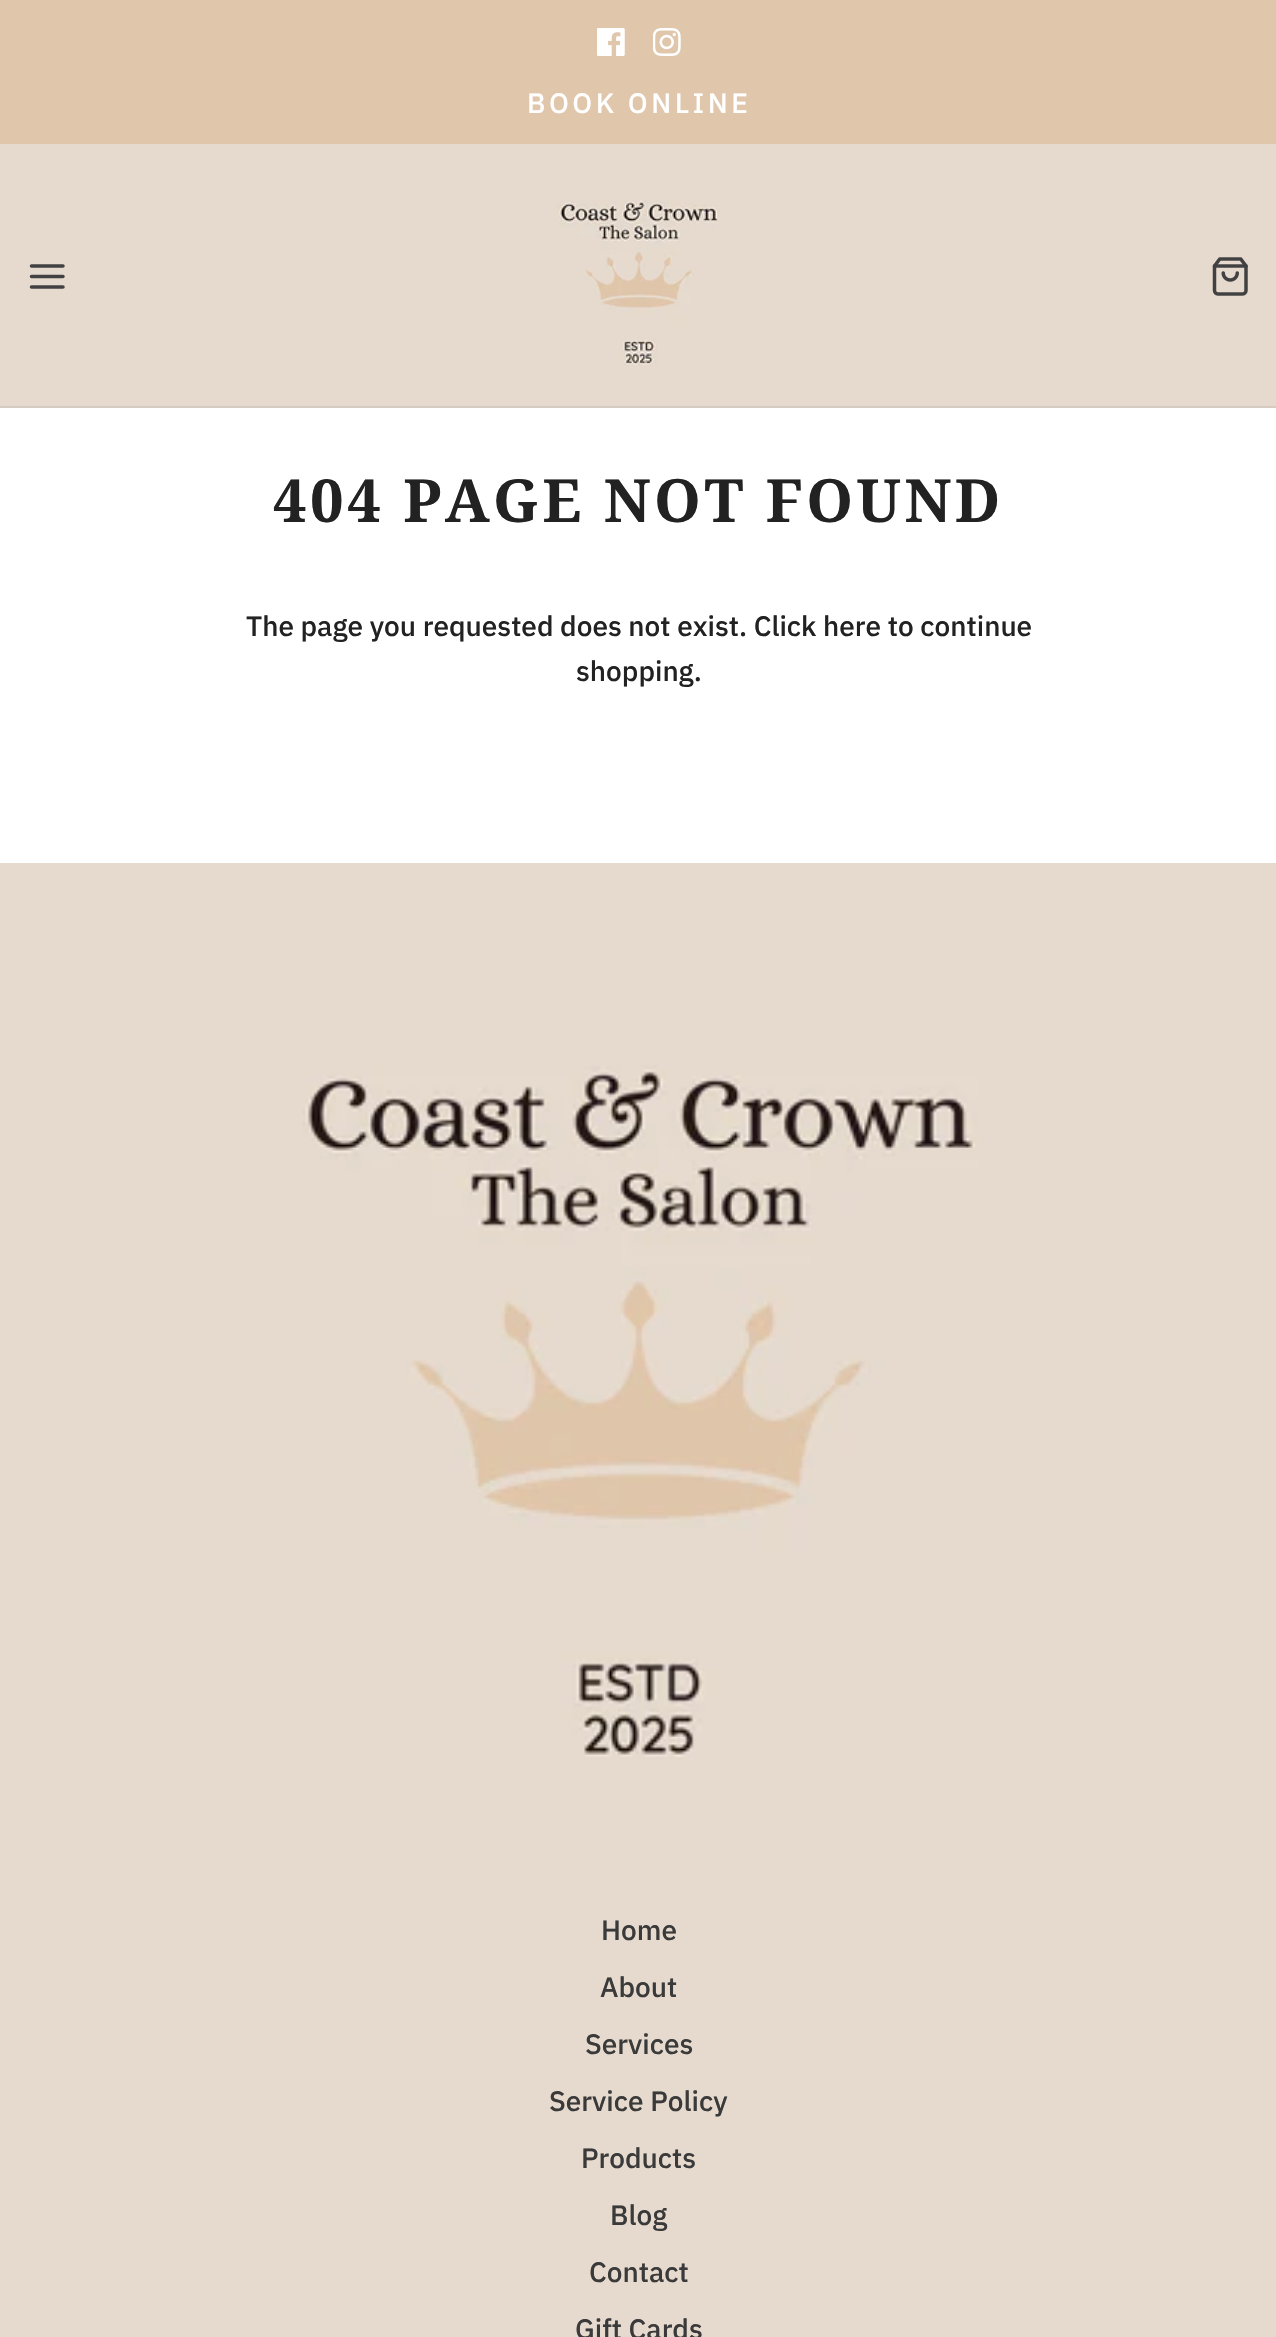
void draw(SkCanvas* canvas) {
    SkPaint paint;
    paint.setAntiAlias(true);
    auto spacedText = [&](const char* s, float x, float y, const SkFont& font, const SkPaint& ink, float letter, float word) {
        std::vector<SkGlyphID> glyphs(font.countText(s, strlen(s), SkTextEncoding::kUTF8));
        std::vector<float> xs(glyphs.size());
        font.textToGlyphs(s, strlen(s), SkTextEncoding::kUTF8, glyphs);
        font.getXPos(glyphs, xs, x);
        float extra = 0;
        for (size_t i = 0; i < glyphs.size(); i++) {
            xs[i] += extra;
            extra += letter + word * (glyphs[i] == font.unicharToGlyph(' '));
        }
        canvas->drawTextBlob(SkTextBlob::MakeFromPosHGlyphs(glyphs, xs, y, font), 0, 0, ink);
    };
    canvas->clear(0xFFFFFFFF);
    paint.setColor(0xFFE0C6AB);
    canvas->drawRect(SkRect::MakeXYWH(0, 0, 1276, 144), paint);
    canvas->drawImageRect(SkImages::DeferredFromEncodedData(SkData::MakeFromFileName("img1.png")), SkRect::MakeXYWH(597, 28, 28, 28), SkSamplingOptions());
    canvas->drawImageRect(SkImages::DeferredFromEncodedData(SkData::MakeFromFileName("img2.png")), SkRect::MakeXYWH(653, 28, 28, 28), SkSamplingOptions());
    SkFont font1(fontMgr->matchFamilyStyle("IBM Plex Sans", SkFontStyle(500, SkFontStyle::kNormal_Width, SkFontStyle::kUpright_Slant)), 28);
    font1.setSubpixel(true);
    paint.setColor(0xFFFFFFFF);
    spacedText("BOOK ONLINE", 527, 113, font1, paint, 3.5f, 0);
    paint.setColor(0xFFE6DACE);
    canvas->drawRect(SkRect::MakeXYWH(0, 144, 1276, 262), paint);
    paint.setColor(0xFFD6CBC0);
    canvas->drawRect(SkRect::MakeXYWH(0, 406, 1276, 2), paint);
    paint.setStyle(SkPaint::kStroke_Style);
    paint.setStrokeWidth(3.5f);
    paint.setStrokeCap(SkPaint::kRound_Cap);
    paint.setStrokeJoin(SkPaint::kRound_Join);
    paint.setColor(0xFF414141);
    canvas->drawPath(SkPathBuilder().moveTo(31.5f, 276.5f).lineTo(63, 276.5f).moveTo(31.5f, 266).lineTo(63, 266).moveTo(31.5f, 287).lineTo(63, 287).detach(), paint);
    canvas->drawImageRect(SkImages::DeferredFromEncodedData(SkData::MakeFromFileName("img3.png")), SkRect::MakeXYWH(557, 200, 162, 166), SkSamplingOptions());
    canvas->drawImageRect(SkImages::DeferredFromEncodedData(SkData::MakeFromFileName("img4.png")), SkRect::MakeXYWH(1212, 257, 36, 39), SkSamplingOptions());
    SkFont font2(fontMgr->matchFamilyStyle("Noto Serif", SkFontStyle::Bold()), 59.5f);
    font2.setSubpixel(true);
    paint.setStyle(SkPaint::kFill_Style);
    paint.setColor(0xFF222222);
    spacedText("404 PAGE NOT FOUND", 273, 522, font2, paint, 3.5f, 0);
    canvas->drawString("The page you requested does not exist. Click here to continue", 246, 636, font1, paint);
    canvas->drawString("shopping.", 576, 681, font1, paint);
    paint.setColor(0xFFE6DACE);
    canvas->drawRect(SkRect::MakeXYWH(0, 863, 1276, 1474), paint);
    canvas->drawImageRect(SkImages::DeferredFromEncodedData(SkData::MakeFromFileName("img5.png")), SkRect::MakeXYWH(302, 1065, 676, 694), SkSamplingOptions());
    paint.setColor(0xFF3A3A3A);
    canvas->drawString("Home", 601, 1940, font1, paint);
    canvas->drawString("About", 600, 1997, font1, paint);
    canvas->drawString("Services", 585, 2054, font1, paint);
    canvas->drawString("Service Policy", 549, 2111, font1, paint);
    canvas->drawString("Products", 581, 2168, font1, paint);
    canvas->drawString("Blog", 610, 2225, font1, paint);
    canvas->drawString("Contact", 589, 2282, font1, paint);
    canvas->drawString("Gift Cards", 575, 2339, font1, paint);
}
